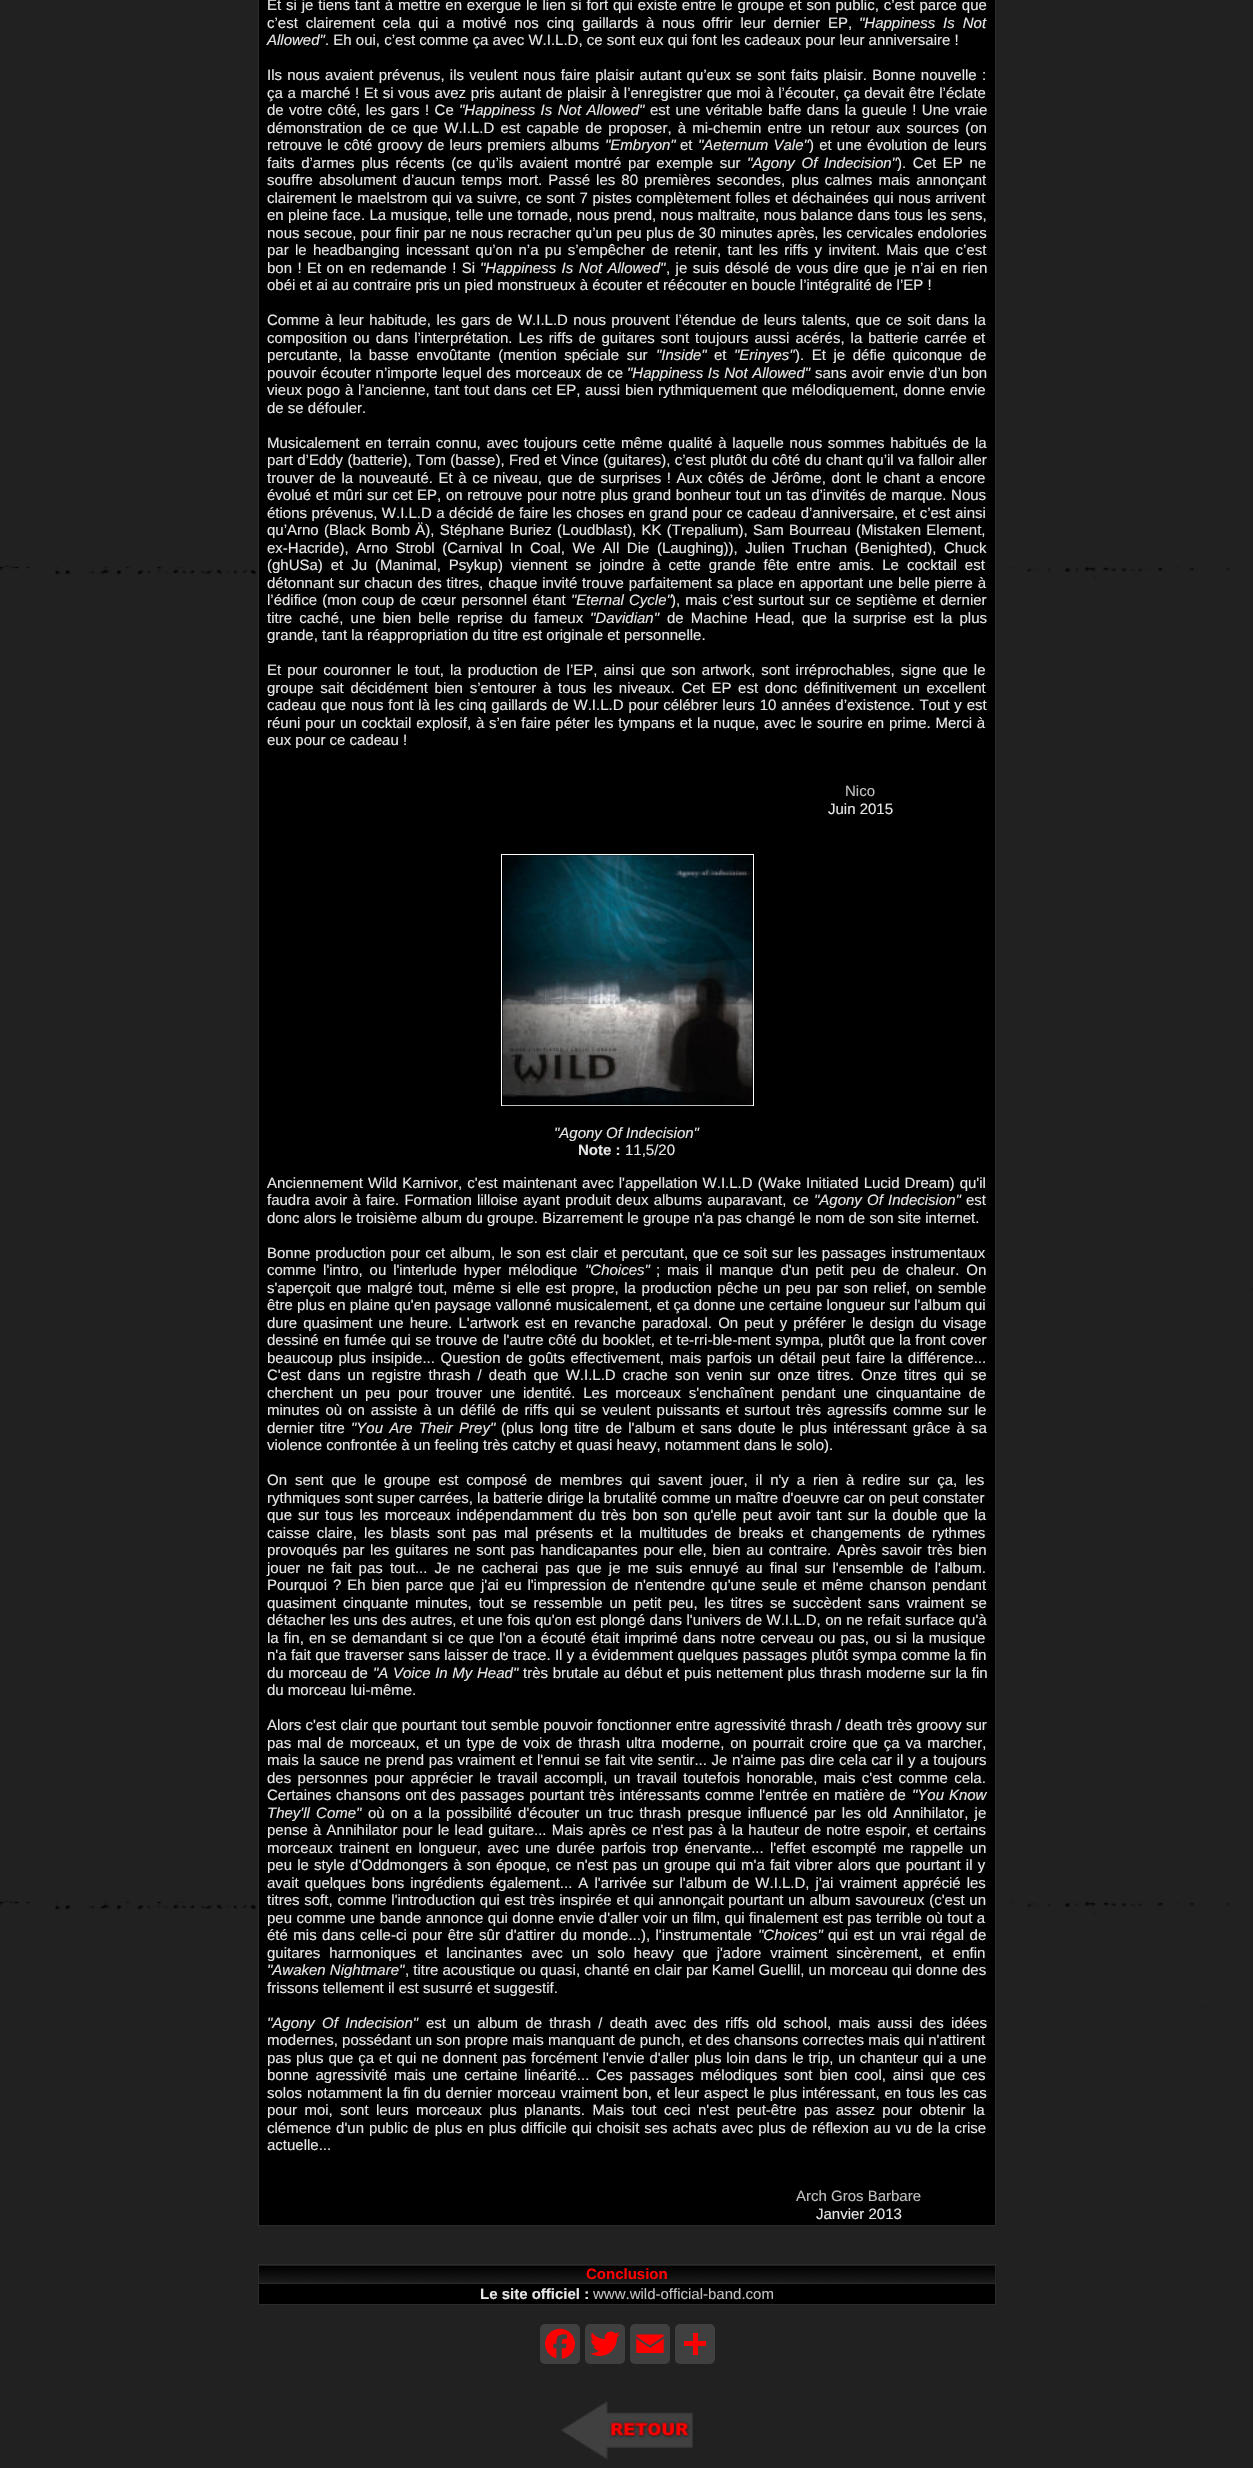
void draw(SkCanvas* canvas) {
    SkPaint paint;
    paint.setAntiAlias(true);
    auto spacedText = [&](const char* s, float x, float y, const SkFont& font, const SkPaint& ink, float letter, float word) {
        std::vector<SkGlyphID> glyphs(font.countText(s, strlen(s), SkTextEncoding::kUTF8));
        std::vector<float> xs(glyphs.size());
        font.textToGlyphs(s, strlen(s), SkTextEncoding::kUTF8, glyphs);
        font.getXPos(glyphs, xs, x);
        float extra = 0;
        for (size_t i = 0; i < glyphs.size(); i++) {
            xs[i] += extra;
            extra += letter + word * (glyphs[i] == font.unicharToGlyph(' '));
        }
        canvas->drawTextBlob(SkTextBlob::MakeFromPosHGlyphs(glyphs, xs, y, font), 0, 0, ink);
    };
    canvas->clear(0xFFFFFFFF);
    canvas->drawImageRect(SkImages::DeferredFromEncodedData(SkData::MakeFromFileName("img1.png")), SkRect::MakeXYWH(0, 0, 1253, 2468), SkSamplingOptions());
    paint.setColor(0xFF000000);
    canvas->drawRect(SkRect::MakeXYWH(259, 0, 736, 2225), paint);
    paint.setColor(0xFF2B2B2B);
    canvas->drawRect(SkRect::MakeXYWH(995, 0, 1, 2226), paint);
    canvas->drawRect(SkRect::MakeXYWH(258, 2225, 738, 1), paint);
    canvas->drawRect(SkRect::MakeXYWH(258, 0, 1, 2226), paint);
    SkFont font1(fontMgr->matchFamilyStyle("Liberation Sans", SkFontStyle::Normal()), 15);
    font1.setSubpixel(true);
    paint.setColor(0xFFE6E6E6);
    spacedText("Et si je tiens tant à mettre en exergue le lien si fort qui existe entre le groupe et son public, c’est parce que", 267, 10, font1, paint, 0, 0.7f);
    spacedText("c’est clairement cela qui a motivé nos cinq gaillards à nous offrir leur dernier EP,", 267, 28, font1, paint, 0, 3.75f);
    SkFont font2(fontMgr->matchFamilyStyle("Liberation Sans", SkFontStyle::Italic()), 15);
    font2.setSubpixel(true);
    spacedText("\"Happiness Is Not", 859, 28, font2, paint, 0, 3.75f);
    canvas->drawString("Allowed\"", 267, 45, font2, paint);
    canvas->drawString(". Eh oui, c’est comme ça avec W.I.L.D, ce sont eux qui font les cadeaux pour leur anniversaire !", 325, 45, font1, paint);
    spacedText("Ils nous avaient prévenus, ils veulent nous faire plaisir autant qu’eux se sont faits plaisir. Bonne nouvelle :", 267, 80, font1, paint, 0, 1.1f);
    spacedText("ça a marché ! Et si vous avez pris autant de plaisir à l’enregistrer que moi à l’écouter, ça devait être l’éclate", 267, 98, font1, paint, 0, 0.45f);
    spacedText("de votre côté, les gars ! Ce", 267, 115, font1, paint, 0, 1.25f);
    spacedText("\"Happiness Is Not Allowed\"", 459, 115, font2, paint, 0, 1.25f);
    spacedText("est une véritable baffe dans la gueule ! Une vraie", 650, 115, font1, paint, 0, 1.25f);
    spacedText("démonstration de ce que W.I.L.D est capable de proposer, à mi-chemin entre un retour aux sources (on", 267, 133, font1, paint, 0, 2);
    spacedText("retrouve le côté groovy de leurs premiers albums", 267, 150, font1, paint, 0, 1);
    canvas->drawString("\"Embryon\"", 605, 150, font2, paint);
    canvas->drawString("et", 680, 150, font1, paint);
    spacedText("\"Aeternum Vale\"", 698, 150, font2, paint, 0, 1);
    spacedText(") et une évolution de leurs", 809, 150, font1, paint, 0, 1);
    spacedText("faits d’armes plus récents (ce qu’ils avaient montré par exemple sur", 267, 168, font1, paint, 0, 2.5f);
    spacedText("\"Agony Of Indecision\"", 747, 168, font2, paint, 0, 2.5f);
    spacedText("). Cet EP ne", 897, 168, font1, paint, 0, 2.5f);
    spacedText("souffre absolument d’aucun temps mort. Passé les 80 premières secondes, plus calmes mais annonçant", 267, 185, font1, paint, 0, 1.9f);
    spacedText("clairement le maelstrom qui va suivre, ce sont 7 pistes complètement folles et déchainées qui nous arrivent", 267, 203, font1, paint, 0, 0.5f);
    spacedText("en pleine face. La musique, telle une tornade, nous prend, nous maltraite, nous balance dans tous les sens,", 267, 220, font1, paint, 0, 0.25f);
    spacedText("nous secoue, pour finir par ne nous recracher qu’un peu plus de 30 minutes après, les cervicales endolories", 267, 238, font1, paint, 0, 0.2f);
    spacedText("par le headbanging incessant qu’on n’a pu s’empêcher de retenir, tant les riffs y invitent. Mais que c’est", 267, 255, font1, paint, 0, 2.1f);
    spacedText("bon ! Et on en redemande ! Si", 267, 273, font1, paint, 0, 1.25f);
    spacedText("\"Happiness Is Not Allowed\"", 480, 273, font2, paint, 0, 1.25f);
    spacedText(", je suis désolé de vous dire que je n’ai en rien", 666, 273, font1, paint, 0, 1.25f);
    canvas->drawString("obéi et ai au contraire pris un pied monstrueux à écouter et réécouter en boucle l’intégralité de l’EP !", 267, 290, font1, paint);
    spacedText("Comme à leur habitude, les gars de W.I.L.D nous prouvent l’étendue de leurs talents, que ce soit dans la", 267, 325, font1, paint, 0, 1.3f);
    spacedText("composition ou dans l’interprétation. Les riffs de guitares sont toujours aussi acérés, la batterie carrée et", 267, 343, font1, paint, 0, 1.8f);
    spacedText("percutante, la basse envoûtante (mention spéciale sur", 267, 360, font1, paint, 0, 3.4f);
    canvas->drawString("\"Inside\"", 656, 360, font2, paint);
    canvas->drawString("et", 714, 360, font1, paint);
    canvas->drawString("\"Erinyes\"", 734, 360, font2, paint);
    spacedText("). Et je défie quiconque de", 795, 360, font1, paint, 0, 3.4f);
    spacedText("pouvoir écouter n’importe lequel des morceaux de ce", 267, 378, font1, paint, 0, 0.5f);
    spacedText("\"Happiness Is Not Allowed\"", 627, 378, font2, paint, 0, 0.5f);
    spacedText("sans avoir envie d’un bon", 815, 378, font1, paint, 0, 0.5f);
    spacedText("vieux pogo à l’ancienne, tant tout dans cet EP, aussi bien rythmiquement que mélodiquement, donne envie", 267, 395, font1, paint, 0, 0.6f);
    canvas->drawString("de se défouler.", 267, 413, font1, paint);
    spacedText("Musicalement en terrain connu, avec toujours cette même qualité à laquelle nous sommes habitués de la", 267, 448, font1, paint, 0, 1.5f);
    spacedText("part d’Eddy (batterie), Tom (basse), Fred et Vince (guitares), c’est plutôt du côté du chant qu’il va falloir aller", 267, 465, font1, paint, 0, 0.2f);
    spacedText("trouver de la nouveauté. Et à ce niveau, que de surprises ! Aux côtés de Jérôme, dont le chant a encore", 267, 483, font1, paint, 0, 1.4f);
    spacedText("évolué et mûri sur cet EP, on retrouve pour notre plus grand bonheur tout un tas d’invités de marque. Nous", 267, 500, font1, paint, 0, 0.5f);
    spacedText("étions prévenus, W.I.L.D a décidé de faire les choses en grand pour ce cadeau d’anniversaire, et c’est ainsi", 267, 518, font1, paint, 0, 0.3f);
    spacedText("qu’Arno (Black Bomb Ä), Stéphane Buriez (Loudblast), KK (Trepalium), Sam Bourreau (Mistaken Element,", 267, 535, font1, paint, 0, 1.1f);
    spacedText("ex-Hacride), Arno Strobl (Carnival In Coal, We All Die (Laughing)), Julien Truchan (Benighted), Chuck", 267, 553, font1, paint, 0, 3.4f);
    spacedText("(ghUSa) et Ju (Manimal, Psykup) viennent se joindre à cette grande fête entre amis. Le cocktail est", 267, 570, font1, paint, 0, 3.75f);
    spacedText("détonnant sur chacun des titres, chaque invité trouve parfaitement sa place en apportant une belle pierre à", 267, 588, font1, paint, 0, 0.7f);
    spacedText("l’édifice (mon coup de cœur personnel étant", 267, 605, font1, paint, 0, 1);
    spacedText("\"Eternal Cycle\"", 571, 605, font2, paint, 0, 1);
    spacedText("), mais c’est surtout sur ce septième et dernier", 671, 605, font1, paint, 0, 1);
    spacedText("titre caché, une bien belle reprise du fameux", 267, 623, font1, paint, 0, 3);
    canvas->drawString("\"Davidian\"", 590, 623, font2, paint);
    spacedText("de Machine Head, que la surprise est la plus", 667, 623, font1, paint, 0, 3);
    canvas->drawString("grande, tant la réappropriation du titre est originale et personnelle.", 267, 640, font1, paint);
    spacedText("Et pour couronner le tout, la production de l’EP, ainsi que son artwork, sont irréprochables, signe que le", 267, 675, font1, paint, 0, 1.9f);
    spacedText("groupe sait décidément bien s’entourer à tous les niveaux. Cet EP est donc définitivement un excellent", 267, 693, font1, paint, 0, 2.5f);
    spacedText("cadeau que nous font là les cinq gaillards de W.I.L.D pour célébrer leurs 10 années d’existence. Tout y est", 267, 710, font1, paint, 0, 0.7f);
    spacedText("réuni pour un cocktail explosif, à s’en faire péter les tympans et la nuque, avec le sourire en prime. Merci à", 267, 728, font1, paint, 0, 0.6f);
    canvas->drawString("eux pour ce cadeau !", 267, 745, font1, paint);
    paint.setColor(0xFFC0C0C0);
    canvas->drawString("Nico", 845, 796, font1, paint);
    paint.setColor(0xFFE6E6E6);
    canvas->drawString("Juin 2015", 828, 814, font1, paint);
    paint.setStyle(SkPaint::kStroke_Style);
    paint.setStrokeWidth(1);
    paint.setColor(0xFFFFFFFF);
    canvas->drawRect(SkRect::MakeXYWH(501.5f, 854.5f, 252, 251), paint);
    canvas->drawImageRect(SkImages::DeferredFromEncodedData(SkData::MakeFromFileName("img2.png")), SkRect::MakeXYWH(502, 855, 251, 251), SkSamplingOptions());
    paint.setStyle(SkPaint::kFill_Style);
    paint.setColor(0xFFE6E6E6);
    canvas->drawString("\"Agony Of Indecision\"", 554, 1138, font2, paint);
    SkFont font3(fontMgr->matchFamilyStyle("Liberation Sans", SkFontStyle::Bold()), 15);
    font3.setSubpixel(true);
    canvas->drawString("Note :", 578, 1155, font3, paint);
    canvas->drawString("11,5/20", 625, 1155, font1, paint);
    spacedText("Anciennement Wild Karnivor, c'est maintenant avec l'appellation W.I.L.D (Wake Initiated Lucid Dream) qu'il", 267, 1188, font1, paint, 0, 0.9f);
    spacedText("faudra avoir à faire. Formation lilloise ayant produit deux albums auparavant,", 267, 1205, font1, paint, 0, 1);
    canvas->drawString("ce", 793, 1205, font1, paint);
    spacedText("\"Agony Of Indecision\"", 814, 1205, font2, paint, 0, 1);
    canvas->drawString("est", 966, 1205, font1, paint);
    canvas->drawString("donc alors le troisième album du groupe. Bizarrement le groupe n'a pas changé le nom de son site internet.", 267, 1223, font1, paint);
    spacedText("Bonne production pour cet album, le son est clair", 267, 1258, font1, paint, 0, 0.75f);
    spacedText("et percutant, que ce soit sur les passages instrumentaux", 604, 1258, font1, paint, 0, 0.75f);
    spacedText("comme l'intro, ou l'interlude hyper mélodique", 267, 1275, font1, paint, 0, 2.75f);
    canvas->drawString("\"Choices\"", 585, 1275, font2, paint);
    spacedText("; mais il manque d'un petit peu de chaleur. On", 656, 1275, font1, paint, 0, 2.75f);
    spacedText("s'aperçoit que malgré tout, même si elle est propre, la production pêche un peu par son relief, on semble", 267, 1293, font1, paint, 0, 1.4f);
    spacedText("être plus en plaine qu'en paysage vallonné musicalement, et ça donne une certaine longueur sur l'album qui", 267, 1310, font1, paint, 0, 0.1f);
    spacedText("dure quasiment une heure. L'artwork est en revanche paradoxal. On peut y préférer le design du visage", 267, 1328, font1, paint, 0, 2);
    spacedText("dessiné en fumée qui se trouve de l'autre côté du booklet, et te-rri-ble-ment sympa, plutôt que la front cover", 267, 1345, font1, paint, 0, 0.4f);
    spacedText("beaucoup plus insipide... Question de goûts effectivement, mais parfois un détail peut faire la différence...", 267, 1363, font1, paint, 0, 1.4f);
    spacedText("C'est dans un registre thrash / death que W.I.L.D crache son venin sur onze titres. Onze titres qui se", 267, 1380, font1, paint, 0, 3);
    spacedText("cherchent un peu pour trouver une identité. Les morceaux s'enchaînent pendant une cinquantaine de", 267, 1398, font1, paint, 0, 3.6f);
    spacedText("minutes où on assiste à un défilé de riffs qui se veulent puissants et surtout très agressifs comme sur le", 267, 1415, font1, paint, 0, 1.75f);
    spacedText("dernier titre", 267, 1433, font1, paint, 0, 2);
    spacedText("\"You Are Their Prey\"", 351, 1433, font2, paint, 0, 2);
    spacedText("(plus long titre de l'album et sans doute le plus intéressant grâce à sa", 501, 1433, font1, paint, 0, 2);
    canvas->drawString("violence confrontée à un feeling très catchy et quasi heavy, notamment dans le solo).", 267, 1450, font1, paint);
    spacedText("On sent que le groupe est composé de membres qui savent jouer, il n'y a rien à redire sur ça, les", 267, 1485, font1, paint, 0, 3.75f);
    canvas->drawString("rythmiques sont super carrées, la batterie dirige la brutalité comme un maître d'oeuvre car on peut constater", 267, 1503, font1, paint);
    spacedText("que sur tous les morceaux indépendamment du très bon son qu'elle peut avoir tant sur la double que la", 267, 1520, font1, paint, 0, 1.9f);
    spacedText("caisse claire, les blasts sont pas mal présents et la multitudes de breaks et changements de rythmes", 267, 1538, font1, paint, 0, 3.1f);
    spacedText("provoqués par les guitares ne sont pas handicapantes pour elle, bien au contraire.", 267, 1555, font1, paint, 0, 1.5f);
    spacedText("Après savoir très bien", 837, 1555, font1, paint, 0, 1.5f);
    spacedText("jouer ne fait pas tout... Je ne cacherai pas que je me suis ennuyé au final sur l'ensemble de l'album.", 267, 1573, font1, paint, 0, 3);
    spacedText("Pourquoi ? Eh bien parce que", 267, 1590, font1, paint, 0, 1.75f);
    spacedText("j'ai eu l'impression de n'entendre qu'une seule et même chanson pendant", 481, 1590, font1, paint, 0, 1.75f);
    spacedText("quasiment cinquante minutes, tout se ressemble un petit peu, les titres se succèdent sans vraiment se", 267, 1608, font1, paint, 0, 2.75f);
    spacedText("détacher les uns des autres, et une fois qu'on est plongé dans l'univers de W.I.L.D, on ne refait surface qu'à", 267, 1625, font1, paint, 0, 0.25f);
    spacedText("la fin, en se demandant si ce que l'on a écouté était imprimé dans notre cerveau ou pas, ou si la musique", 267, 1643, font1, paint, 0, 1);
    spacedText("n'a fait que traverser sans laisser de trace. Il y a évidemment quelques passages plutôt sympa comme la fin", 267, 1660, font1, paint, 0, 0.2f);
    spacedText("du morceau de", 267, 1678, font1, paint, 0, 0.45f);
    spacedText("\"A Voice In My Head\"", 373, 1678, font2, paint, 0, 0.5f);
    spacedText("très brutale au début et puis nettement plus thrash moderne sur la fin", 523, 1678, font1, paint, 0, 0.5f);
    canvas->drawString("du morceau lui-même.", 267, 1695, font1, paint);
    spacedText("Alors c'est clair que pourtant tout semble pouvoir fonctionner entre agressivité thrash / death très groovy sur", 267, 1730, font1, paint, 0, 0.25f);
    spacedText("pas mal de morceaux, et un type de voix de thrash ultra moderne, on pourrait croire que ça va marcher,", 267, 1748, font1, paint, 0, 1.7f);
    spacedText("mais la sauce ne prend pas vraiment et l'ennui se fait vite sentir... Je n'aime pas dire cela car il y a toujours", 267, 1765, font1, paint, 0, 0.5f);
    spacedText("des personnes pour apprécier le travail accompli, un travail toutefois honorable, mais c'est comme cela.", 267, 1783, font1, paint, 0, 2.25f);
    spacedText("Certaines chansons ont des passages pourtant très intéressants comme l'entrée en matière de", 267, 1800, font1, paint, 0, 0.75f);
    spacedText("\"You Know", 912, 1800, font2, paint, 0, 0.75f);
    spacedText("They'll Come\"", 267, 1818, font2, paint, 0, 2);
    spacedText("où on a la possibilité d'écouter un truc thrash presque influencé par les old Annihilator, je", 368, 1818, font1, paint, 0, 2);
    spacedText("pense à Annihilator pour le lead guitare... Mais après ce n'est pas à la hauteur de notre espoir, et certains", 267, 1835, font1, paint, 0, 1);
    spacedText("morceaux trainent en longueur, avec une durée parfois trop énervante... l'effet escompté me rappelle un", 267, 1853, font1, paint, 0, 2.1f);
    spacedText("peu le style d'Oddmongers à son époque, ce n'est pas un groupe qui m'a fait vibrer alors que pourtant il y", 267, 1870, font1, paint, 0, 1);
    spacedText("avait quelques bons ingrédients également... A l'arrivée sur l'album de W.I.L.D, j'ai vraiment apprécié les", 267, 1888, font1, paint, 0, 1.9f);
    spacedText("titres soft, comme l'introduction qui est très inspirée et qui annonçait pourtant un album savoureux (c'est un", 267, 1905, font1, paint, 0, 0.6f);
    spacedText("peu comme une bande annonce qui donne envie d'aller voir un film, qui finalement est pas terrible où tout a", 267, 1923, font1, paint, 0, 0.3f);
    spacedText("été mis dans celle-ci pour être sûr d'attirer du monde...), l'instrumentale", 267, 1940, font1, paint, 0, 1.3f);
    canvas->drawString("\"Choices\"", 758, 1940, font2, paint);
    spacedText("qui est un vrai régal de", 828, 1940, font1, paint, 0, 1.3f);
    spacedText("guitares harmoniques et lancinantes avec un solo heavy que j'adore vraiment sincèrement, et enfin", 267, 1958, font1, paint, 0, 4.75f);
    canvas->drawString("\"Awaken Nightmare\"", 267, 1975, font2, paint);
    canvas->drawString(", titre acoustique ou quasi, chanté en clair par Kamel Guellil, un morceau qui donne des", 405, 1975, font1, paint);
    canvas->drawString("frissons tellement il est susurré et suggestif.", 267, 1993, font1, paint);
    spacedText("\"Agony Of Indecision\"", 267, 2028, font2, paint, 0, 3.1f);
    spacedText("est un album de thrash / death avec des riffs old school, mais aussi des idées", 426, 2028, font1, paint, 0, 3.1f);
    canvas->drawString("modernes, possédant un son propre mais manquant de punch, et des chansons correctes mais qui n'attirent", 267, 2045, font1, paint);
    spacedText("pas plus que ça et qui ne donnent pas forcément l'envie d'aller plus loin dans le trip, un chanteur qui a une", 267, 2063, font1, paint, 0, 0.7f);
    spacedText("bonne agressivité mais une certaine linéarité... Ces passages mélodiques sont bien cool, ainsi que ces", 267, 2080, font1, paint, 0, 2.6f);
    spacedText("solos notamment la fin du dernier morceau vraiment bon, et leur aspect le plus intéressant, en tous les cas", 267, 2098, font1, paint, 0, 0.7f);
    spacedText("pour moi, sont leurs morceaux plus planants. Mais tout ceci n'est peut-être pas assez pour obtenir la", 267, 2115, font1, paint, 0, 3.25f);
    spacedText("clémence d'un public de plus en plus difficile qui choisit ses achats avec plus de réflexion au vu de la crise", 267, 2133, font1, paint, 0, 0.75f);
    canvas->drawString("actuelle...", 267, 2150, font1, paint);
    paint.setColor(0xFFC0C0C0);
    canvas->drawString("Arch Gros Barbare", 796, 2201, font1, paint);
    paint.setColor(0xFFE6E6E6);
    canvas->drawString("Janvier 2013", 816, 2219, font1, paint);
    paint.setColor(0xFF000000);
    canvas->drawRect(SkRect::MakeXYWH(259, 2265, 736, 39), paint);
    paint.setColor(0xFF2B2B2B);
    canvas->drawRect(SkRect::MakeXYWH(258, 2264, 738, 1), paint);
    canvas->drawImageRect(SkImages::DeferredFromEncodedData(SkData::MakeFromFileName("img3.png")), SkRect::MakeXYWH(259, 2265, 738, 19), SkSamplingOptions());
    canvas->drawRect(SkRect::MakeXYWH(995, 2264, 1, 41), paint);
    canvas->drawRect(SkRect::MakeXYWH(258, 2304, 738, 1), paint);
    canvas->drawRect(SkRect::MakeXYWH(258, 2264, 1, 41), paint);
    paint.setColor(0xFFFF0000);
    canvas->drawString("Conclusion", 586, 2279, font3, paint);
    paint.setColor(0xFF2B2B2B);
    canvas->drawRect(SkRect::MakeXYWH(258, 2283, 738, 1), paint);
    paint.setColor(0xFFE6E6E6);
    canvas->drawString("Le site officiel :", 480, 2299, font3, paint);
    paint.setColor(0xFFC0C0C0);
    canvas->drawString("www.wild-official-band.com", 593, 2299, font1, paint);
    paint.setColor(0xFF404040);
    canvas->drawRoundRect(SkRect::MakeXYWH(540, 2324, 40, 40), 5, 5, paint);
    canvas->drawImageRect(SkImages::DeferredFromEncodedData(SkData::MakeFromFileName("img4.png")), SkRect::MakeXYWH(545, 2328, 30, 31), SkSamplingOptions());
    canvas->drawRoundRect(SkRect::MakeXYWH(585, 2324, 40, 40), 5, 5, paint);
    canvas->drawImageRect(SkImages::DeferredFromEncodedData(SkData::MakeFromFileName("img5.png")), SkRect::MakeXYWH(590, 2331, 30, 25), SkSamplingOptions());
    canvas->drawRoundRect(SkRect::MakeXYWH(630, 2324, 40, 40), 5, 5, paint);
    canvas->drawImageRect(SkImages::DeferredFromEncodedData(SkData::MakeFromFileName("img6.png")), SkRect::MakeXYWH(636, 2334, 28, 19), SkSamplingOptions());
    canvas->drawRoundRect(SkRect::MakeXYWH(675, 2324, 40, 40), 5, 5, paint);
    paint.setColor(0xFFFF0000);
    canvas->drawRect(SkRect::MakeXYWH(693, 2333, 5, 22), paint);
    canvas->drawRect(SkRect::MakeXYWH(684, 2341, 22, 5), paint);
    canvas->drawImageRect(SkImages::DeferredFromEncodedData(SkData::MakeFromFileName("img7.png")), SkRect::MakeXYWH(561, 2401, 132, 58), SkSamplingOptions());
}
